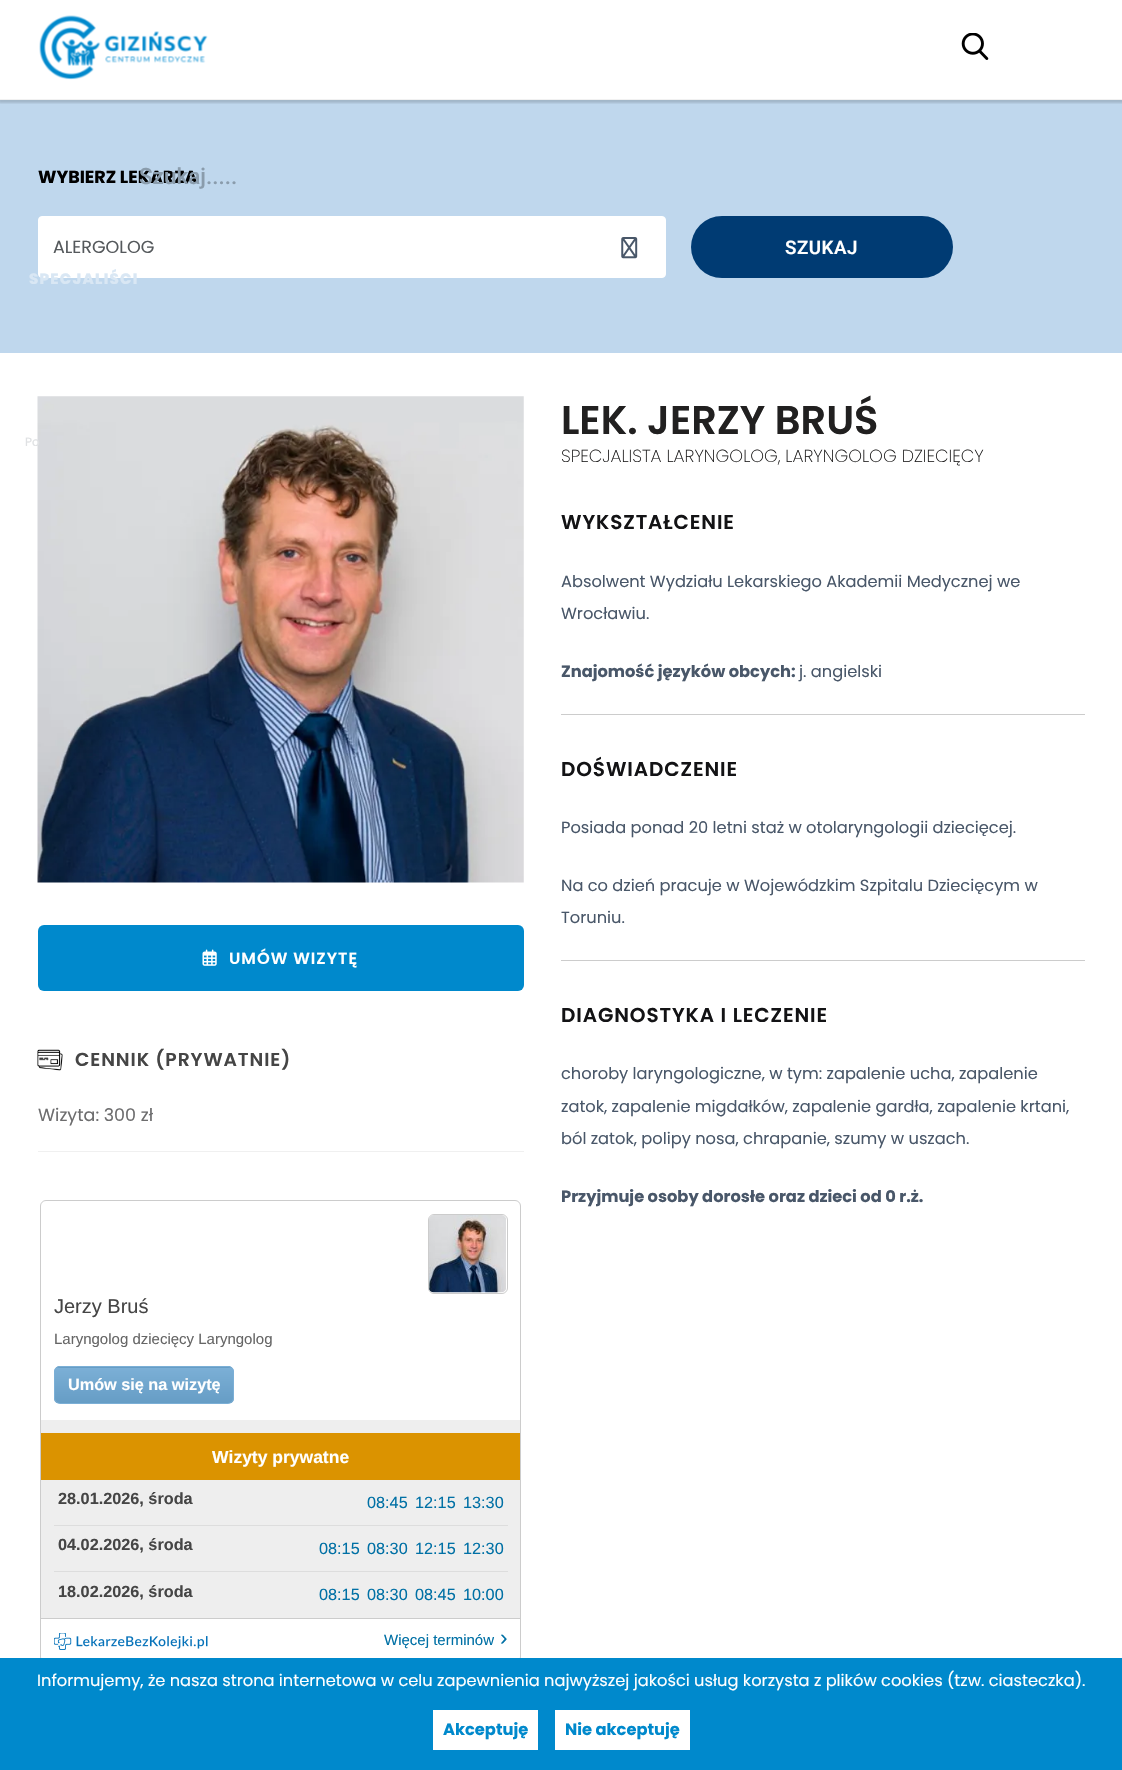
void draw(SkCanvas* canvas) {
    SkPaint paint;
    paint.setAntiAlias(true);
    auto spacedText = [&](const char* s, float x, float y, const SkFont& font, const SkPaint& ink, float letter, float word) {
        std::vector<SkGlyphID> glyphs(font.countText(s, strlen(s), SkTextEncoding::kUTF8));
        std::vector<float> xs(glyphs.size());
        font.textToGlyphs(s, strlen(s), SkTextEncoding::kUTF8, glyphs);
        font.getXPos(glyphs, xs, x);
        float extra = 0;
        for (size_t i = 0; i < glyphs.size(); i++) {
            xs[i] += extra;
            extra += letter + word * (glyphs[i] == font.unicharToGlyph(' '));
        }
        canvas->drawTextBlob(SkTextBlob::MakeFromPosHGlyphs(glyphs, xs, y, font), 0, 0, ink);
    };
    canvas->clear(0xFFFFFFFF);
    paint.setColor(0xFFBFD7ED);
    canvas->drawRect(SkRect::MakeXYWH(0, 100, 1122, 253), paint);
    SkFont font1(fontMgr->matchFamilyStyle("Poppins", SkFontStyle::Bold()), 17.5f);
    font1.setSubpixel(true);
    paint.setColor(0xFF000000);
    canvas->drawString("WYBIERZ LEKARZA", 38, 183, font1, paint);
    SkFont font2(fontMgr->matchFamilyStyle("Roboto", SkFontStyle(500, SkFontStyle::kNormal_Width, SkFontStyle::kUpright_Slant)), 22.5f);
    font2.setSubpixel(true);
    paint.setColor(0xFF8A9CAC);
    canvas->drawString("Szukaj.....", 139, 184, font2, paint);
    paint.setColor(0xFFFFFFFF);
    canvas->drawRoundRect(SkRect::MakeXYWH(38.5f, 216.5f, 627, 61), 3.5f, 3.5f, paint);
    paint.setStyle(SkPaint::kStroke_Style);
    paint.setStrokeWidth(1);
    canvas->drawRoundRect(SkRect::MakeXYWH(38.5f, 216.5f, 627, 61), 3.5f, 3.5f, paint);
    SkFont font3(fontMgr->matchFamilyStyle("Poppins", SkFontStyle(800, SkFontStyle::kNormal_Width, SkFontStyle::kUpright_Slant)), 15);
    font3.setSubpixel(true);
    paint.setStyle(SkPaint::kFill_Style);
    paint.setColor(0xFFD9E7F4);
    spacedText("SPECJALIŚCI", 29, 284, font3, paint, 1.25f, 0);
    canvas->drawImageRect(SkImages::DeferredFromEncodedData(SkData::MakeFromFileName("img4.png")), SkRect::MakeXYWH(37, 396, 487, 487), SkSamplingOptions());
    SkFont font4(fontMgr->matchFamilyStyle("Poppins", SkFontStyle::Normal()), 12);
    font4.setSubpixel(true);
    paint.setColor(0xFFDFE1E3);
    canvas->drawString("Po", 25, 446, font4, paint);
    canvas->save();
    canvas->clipRect(SkRect::MakeXYWH(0, 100, 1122, 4));
    paint.setColor(0x26000000);
    paint.setMaskFilter(SkMaskFilter::MakeBlur(kNormal_SkBlurStyle, 1));
    canvas->drawRect(SkRect::MakeXYWH(-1, 0, 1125, 103), paint);
    paint.setMaskFilter(nullptr);
    canvas->restore();
    paint.setColor(0xFFF1F1F1);
    canvas->drawRect(SkRect::MakeXYWH(0, 99, 1122, 1), paint);
    canvas->drawImageRect(SkImages::DeferredFromEncodedData(SkData::MakeFromFileName("img1.png")), SkRect::MakeXYWH(39, 15, 169, 65), SkSamplingOptions());
    canvas->drawImageRect(SkImages::DeferredFromEncodedData(SkData::MakeFromFileName("img2.png")), SkRect::MakeXYWH(961, 33, 28, 27), SkSamplingOptions());
    SkFont font5(fontMgr->matchFamilyStyle("Poppins", SkFontStyle::Normal()), 17.5f);
    font5.setSubpixel(true);
    paint.setColor(0xFF55595C);
    canvas->drawString("ALERGOLOG", 53, 253, font5, paint);
    canvas->drawImageRect(SkImages::DeferredFromEncodedData(SkData::MakeFromFileName("img3.png")), SkRect::MakeXYWH(621, 237, 17, 22), SkSamplingOptions());
    paint.setColor(0xFF003B73);
    canvas->drawRoundRect(SkRect::MakeXYWH(691, 216, 262, 62), 31, 31, paint);
    SkFont font6(fontMgr->matchFamilyStyle("Roboto", SkFontStyle(600, SkFontStyle::kNormal_Width, SkFontStyle::kUpright_Slant)), 18.75f);
    font6.setSubpixel(true);
    paint.setColor(0xFFFFFFFF);
    spacedText("SZUKAJ", 785, 254, font6, paint, 0.5f, 0);
    paint.setColor(0xFF0089CC);
    canvas->drawRoundRect(SkRect::MakeXYWH(38, 925, 486, 66), 6, 6, paint);
    canvas->drawImageRect(SkImages::DeferredFromEncodedData(SkData::MakeFromFileName("img5.png")), SkRect::MakeXYWH(202, 949, 15, 17), SkSamplingOptions());
    SkFont font7(fontMgr->matchFamilyStyle("Poppins", SkFontStyle(600, SkFontStyle::kNormal_Width, SkFontStyle::kUpright_Slant)), 16.25f);
    font7.setSubpixel(true);
    paint.setColor(0xFFFFFFFF);
    spacedText("UMÓW WIZYTĘ", 229, 964, font7, paint, 1, 0);
    SkFont font8(fontMgr->matchFamilyStyle("Poppins", SkFontStyle(600, SkFontStyle::kNormal_Width, SkFontStyle::kUpright_Slant)), 40);
    font8.setSubpixel(true);
    paint.setColor(0xFF212020);
    canvas->drawString("LEK. JERZY BRUŚ", 561, 434, font8, paint);
    SkFont font9(fontMgr->matchFamilyStyle("Poppins", SkFontStyle(200, SkFontStyle::kNormal_Width, SkFontStyle::kUpright_Slant)), 17.5f);
    font9.setSubpixel(true);
    canvas->drawString("SPECJALISTA LARYNGOLOG, LARYNGOLOG DZIECIĘCY", 561, 462, font9, paint);
    SkFont font10(fontMgr->matchFamilyStyle("Poppins", SkFontStyle(600, SkFontStyle::kNormal_Width, SkFontStyle::kUpright_Slant)), 20);
    font10.setSubpixel(true);
    paint.setColor(0xFF131315);
    spacedText("WYKSZTAŁCENIE", 561, 529, font10, paint, 0.9f, 0);
    SkFont font11(fontMgr->matchFamilyStyle("Poppins", SkFontStyle::Normal()), 16.25f);
    font11.setSubpixel(true);
    paint.setColor(0xFF495769);
    canvas->drawString("Absolwent Wydziału Lekarskiego Akademii Medycznej we", 561, 587, font11, paint);
    canvas->drawString("Wrocławiu.", 561, 619, font11, paint);
    SkFont font12(fontMgr->matchFamilyStyle("Poppins", SkFontStyle::Bold()), 16.25f);
    font12.setSubpixel(true);
    canvas->drawString("Znajomość języków obcych:", 561, 677, font12, paint);
    canvas->drawString("j. angielski", 799, 677, font11, paint);
    paint.setColor(0xFFCCCCCC);
    canvas->drawRect(SkRect::MakeXYWH(561, 714, 524, 1), paint);
    paint.setColor(0xFF131315);
    spacedText("DOŚWIADCZENIE", 561, 776, font10, paint, 0.9f, 0);
    paint.setColor(0xFF495769);
    canvas->drawString("Posiada ponad 20 letni staż w otolaryngologii dziecięcej.", 561, 833, font11, paint);
    canvas->drawString("Na co dzień pracuje w Wojewódzkim Szpitalu Dziecięcym w", 561, 891, font11, paint);
    canvas->drawString("Toruniu.", 561, 923, font11, paint);
    paint.setColor(0xFFCCCCCC);
    canvas->drawRect(SkRect::MakeXYWH(561, 960, 524, 1), paint);
    paint.setColor(0xFF131315);
    spacedText("DIAGNOSTYKA I LECZENIE", 561, 1022, font10, paint, 0.9f, 0);
    paint.setColor(0xFF495769);
    canvas->drawString("choroby laryngologiczne, w tym: zapalenie ucha, zapalenie", 561, 1079, font11, paint);
    canvas->drawString("zatok, zapalenie migdałków, zapalenie gardła, zapalenie krtani,", 561, 1112, font11, paint);
    canvas->drawString("ból zatok, polipy nosa, chrapanie, szumy w uszach.", 561, 1144, font11, paint);
    canvas->drawString("Przyjmuje osoby dorosłe oraz dzieci od 0 r.ż.", 561, 1202, font12, paint);
    canvas->drawImageRect(SkImages::DeferredFromEncodedData(SkData::MakeFromFileName("img6.png")), SkRect::MakeXYWH(37, 1049, 26, 22), SkSamplingOptions());
    SkFont font13(fontMgr->matchFamilyStyle("Poppins", SkFontStyle(600, SkFontStyle::kNormal_Width, SkFontStyle::kUpright_Slant)), 18.75f);
    font13.setSubpixel(true);
    paint.setColor(0xFF454545);
    spacedText("CENNIK (PRYWATNIE)", 75, 1066, font13, paint, 0.9f, 0);
    paint.setColor(0xFFF0F0F0);
    canvas->drawRect(SkRect::MakeXYWH(38, 1151, 486, 1), paint);
    paint.setColor(0xFF6D6D6E);
    canvas->drawString("Wizyta: 300 zł", 38, 1121, font5, paint);
    paint.setStyle(SkPaint::kStroke_Style);
    paint.setColor(0xFFCCCCCC);
    canvas->drawRoundRect(SkRect::MakeXYWH(40.5f, 1200.5f, 480, 462), 5.5f, 5.5f, paint);
    canvas->drawRoundRect(SkRect::MakeXYWH(428.5f, 1214.5f, 79, 79), 5.5f, 5.5f, paint);
    canvas->drawImageRect(SkImages::DeferredFromEncodedData(SkData::MakeFromFileName("img7.png")), SkRect::MakeXYWH(429, 1215, 77, 78), SkSamplingOptions());
    SkFont font14(fontMgr->matchFamilyStyle("Liberation Sans", SkFontStyle::Normal()), 20);
    font14.setSubpixel(true);
    paint.setStyle(SkPaint::kFill_Style);
    paint.setColor(0xFF454545);
    canvas->drawString("Jerzy Bruś", 54, 1313, font14, paint);
    SkFont font15(fontMgr->matchFamilyStyle("Liberation Sans", SkFontStyle::Normal()), 15);
    font15.setSubpixel(true);
    paint.setColor(0xFF666666);
    canvas->drawString("Laryngolog dziecięcy Laryngolog", 54, 1344, font15, paint);
    canvas->save();
    canvas->clipPath(SkPathBuilder().moveTo(60, 1366).lineTo(228, 1366).cubicTo(231.5f, 1366, 234, 1368.5f, 234, 1372).lineTo(234, 1398).cubicTo(234, 1401.5f, 231.5f, 1404, 228, 1404).lineTo(60, 1404).cubicTo(56.5f, 1404, 54, 1401.5f, 54, 1398).lineTo(54, 1372).cubicTo(54, 1368.5f, 56.5f, 1366, 60, 1366).close().detach(), true);
    {
        const SkColor colors[] = {0xFF7BAFD6, 0xFF669DC5};
        const float stops[] = {0, 1};
        const SkPoint ends[] = {{144, 1333}, {144, 1368}};
        paint.setShader(SkGradientShader::MakeLinear(ends, colors, stops, 2, SkTileMode::kClamp));
        paint.setAlpha(255);
    }
    canvas->drawRect(SkRect::MakeXYWH(54, 1366, 180, 2), paint);
    {
        const SkColor colors[] = {0xFF7BAFD6, 0xFF669DC5};
        const float stops[] = {0, 1};
        const SkPoint ends[] = {{144, 1368}, {144, 1403}};
        paint.setShader(SkGradientShader::MakeLinear(ends, colors, stops, 2, SkTileMode::kClamp));
        paint.setAlpha(255);
    }
    canvas->drawRect(SkRect::MakeXYWH(54, 1368, 180, 35), paint);
    canvas->restore();
    paint.setStyle(SkPaint::kStroke_Style);
    paint.setShader(nullptr);
    paint.setColor(0xFF7BAFD6);
    canvas->drawRoundRect(SkRect::MakeXYWH(54.5f, 1366.5f, 179, 37), 5.5f, 5.5f, paint);
    SkFont font16(fontMgr->matchFamilyStyle("Liberation Sans", SkFontStyle::Bold()), 16.25f);
    font16.setSubpixel(true);
    paint.setStyle(SkPaint::kFill_Style);
    paint.setColor(0xFFFFFFFF);
    canvas->drawString("Umów się na wizytę", 68, 1390, font16, paint);
    paint.setColor(0xFFEEEEEE);
    canvas->drawRect(SkRect::MakeXYWH(41, 1420, 479, 198), paint);
    paint.setColor(0xFFCCCCCC);
    canvas->drawRect(SkRect::MakeXYWH(41, 1618, 479, 1), paint);
    paint.setColor(0xFFDB9300);
    canvas->drawRect(SkRect::MakeXYWH(41, 1433, 479, 47), paint);
    SkFont font17(fontMgr->matchFamilyStyle("Liberation Sans", SkFontStyle::Bold()), 17.5f);
    font17.setSubpixel(true);
    paint.setColor(0xFFFFFFFF);
    canvas->drawString("Wizyty prywatne", 212, 1463, font17, paint);
    paint.setColor(0xFF454545);
    canvas->drawString("28.01.2026, środa", 58, 1504, font16, paint);
    SkFont font18(fontMgr->matchFamilyStyle("Liberation Sans", SkFontStyle::Normal()), 16.25f);
    font18.setSubpixel(true);
    paint.setColor(0xFF0070A5);
    canvas->drawString("08:45", 367, 1508, font18, paint);
    canvas->drawString("12:15", 415, 1508, font18, paint);
    canvas->drawString("13:30", 463, 1508, font18, paint);
    paint.setColor(0xFFDDDDDD);
    canvas->drawRect(SkRect::MakeXYWH(54, 1525, 454, 1), paint);
    paint.setColor(0xFF454545);
    canvas->drawString("04.02.2026, środa", 58, 1550, font16, paint);
    paint.setColor(0xFF0070A5);
    canvas->drawString("08:15", 319, 1554, font18, paint);
    canvas->drawString("08:30", 367, 1554, font18, paint);
    canvas->drawString("12:15", 415, 1554, font18, paint);
    canvas->drawString("12:30", 463, 1554, font18, paint);
    paint.setColor(0xFFDDDDDD);
    canvas->drawRect(SkRect::MakeXYWH(54, 1571, 454, 1), paint);
    paint.setColor(0xFF454545);
    canvas->drawString("18.02.2026, środa", 58, 1597, font16, paint);
    paint.setColor(0xFF0070A5);
    canvas->drawString("08:15", 319, 1600, font18, paint);
    canvas->drawString("08:30", 367, 1600, font18, paint);
    canvas->drawString("08:45", 415, 1600, font18, paint);
    canvas->drawString("10:00", 463, 1600, font18, paint);
    canvas->drawImageRect(SkImages::DeferredFromEncodedData(SkData::MakeFromFileName("img8.png")), SkRect::MakeXYWH(54, 1633, 154, 17), SkSamplingOptions());
    canvas->drawString("Więcej terminów", 384, 1645, font15, paint);
    SkFont font19(fontMgr->matchFamilyStyle("Liberation Sans", SkFontStyle::Normal()), 22.5f);
    font19.setSubpixel(true);
    canvas->drawString("›", 500, 1645, font19, paint);
    paint.setColor(0xFF0089CC);
    canvas->drawRect(SkRect::MakeXYWH(0, 1658, 1122, 112), paint);
    paint.setColor(0xFFFFFFFF);
    canvas->drawString("Informujemy, że nasza strona internetowa w celu zapewnienia najwyższej jakości usług korzysta z plików cookies (tzw. ciasteczka).", 37, 1686, font11, paint);
    canvas->drawRect(SkRect::MakeXYWH(433, 1710, 105, 40), paint);
    paint.setColor(0xFF0089CC);
    canvas->drawString("Akceptuję", 443, 1735, font12, paint);
    paint.setColor(0xFFFFFFFF);
    canvas->drawRect(SkRect::MakeXYWH(555, 1710, 135, 40), paint);
    paint.setColor(0xFF0089CC);
    canvas->drawString("Nie akceptuję", 565, 1735, font12, paint);
}
